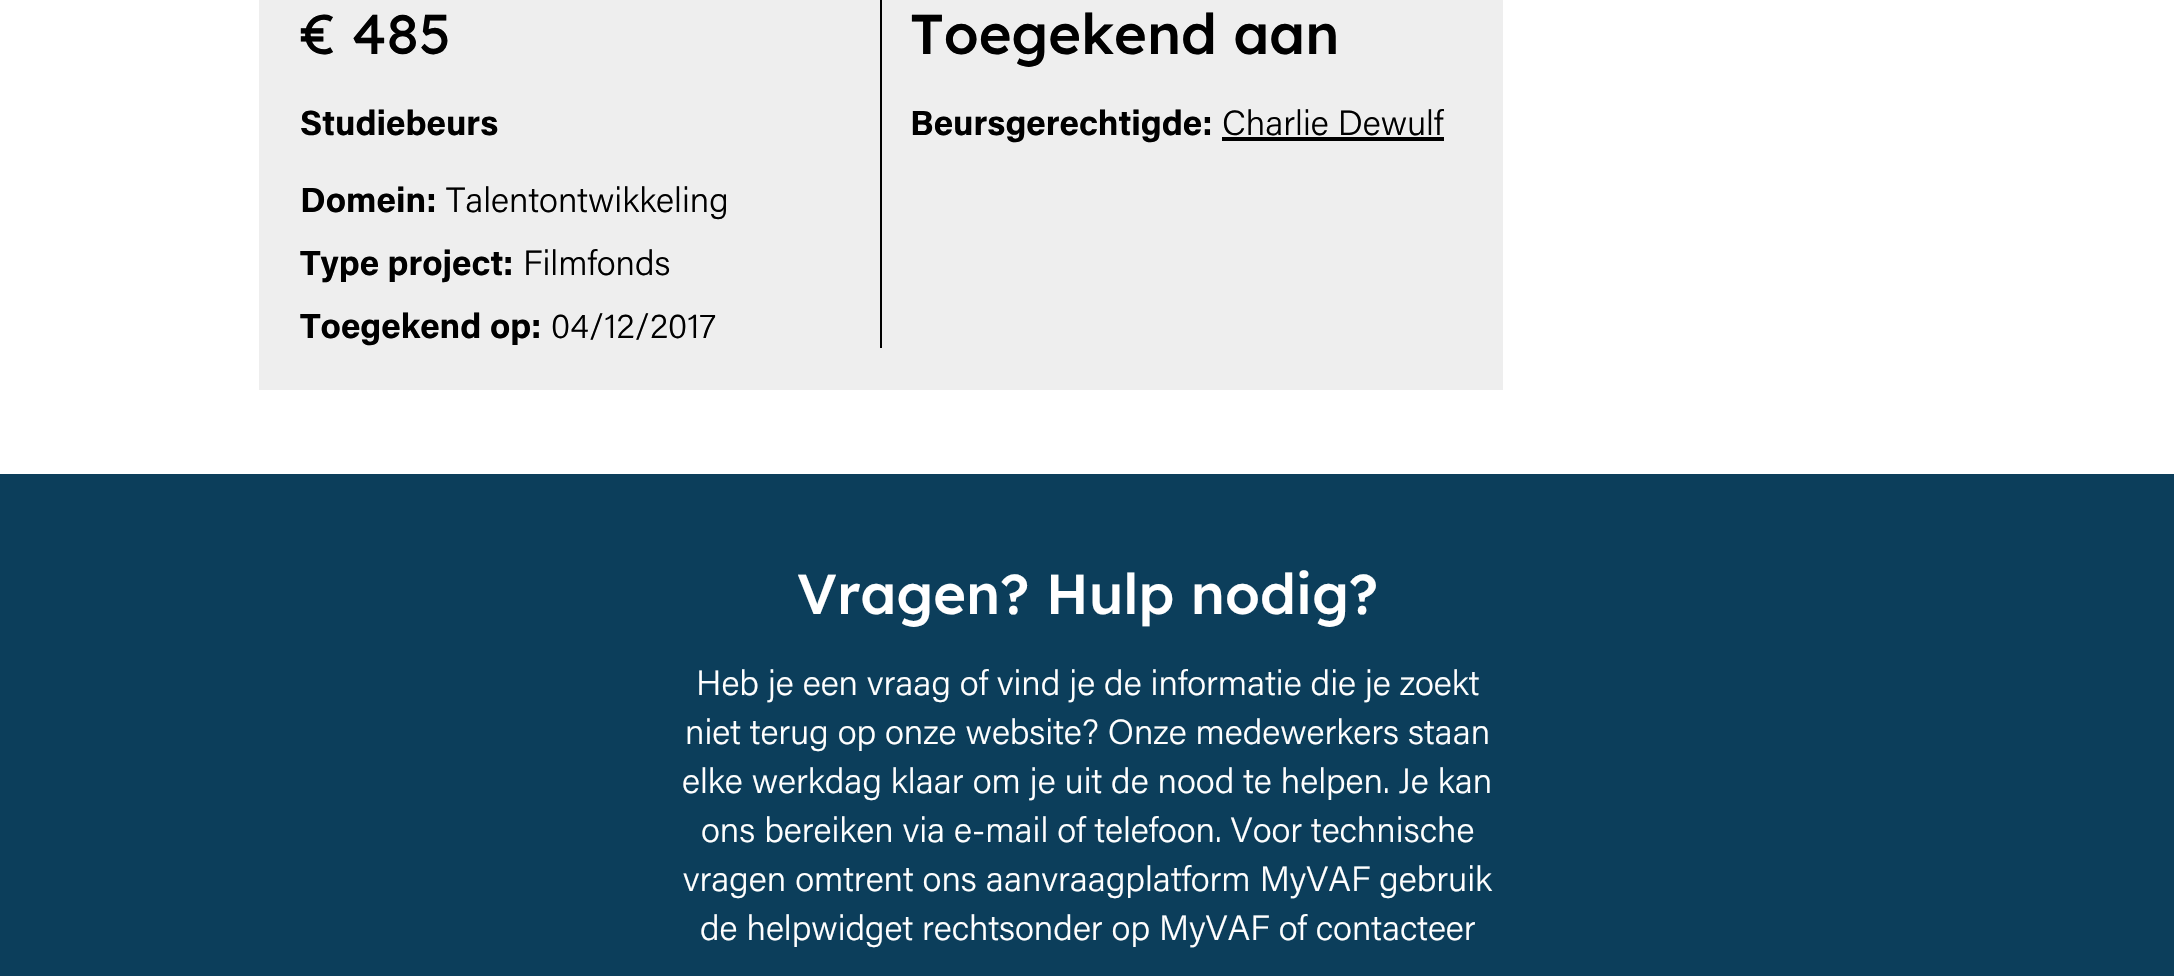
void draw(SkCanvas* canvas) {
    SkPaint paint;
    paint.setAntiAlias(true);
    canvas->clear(0xFFFFFFFF);
    paint.setColor(0xFFEEEEEE);
    canvas->drawRect(SkRect::MakeXYWH(259, 0, 1244, 390), paint);
    SkFont font1(fontMgr->matchFamilyStyle("Lexend", SkFontStyle::Normal()), 56);
    font1.setSubpixel(true);
    paint.setColor(0xFF000000);
    canvas->drawString("€ 485", 300, 54, font1, paint);
    SkFont font2(fontMgr->matchFamilyStyle("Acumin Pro", SkFontStyle::Bold()), 35);
    font2.setSubpixel(true);
    canvas->drawString("Studiebeurs", 300, 135, font2, paint);
    canvas->drawString("Domein:", 300, 212, font2, paint);
    SkFont font3(fontMgr->matchFamilyStyle("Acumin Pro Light", SkFontStyle(300, SkFontStyle::kNormal_Width, SkFontStyle::kUpright_Slant)), 35);
    font3.setSubpixel(true);
    canvas->drawString("Talentontwikkeling", 446, 212, font3, paint);
    canvas->drawString("Type project:", 300, 275, font2, paint);
    canvas->drawString("Filmfonds", 523, 275, font3, paint);
    canvas->drawString("Toegekend op:", 300, 338, font2, paint);
    canvas->drawString("04/12/2017", 551, 338, font3, paint);
    canvas->drawRect(SkRect::MakeXYWH(880, 0, 2, 348), paint);
    SkFont font4(fontMgr->matchFamilyStyle("Lexend", SkFontStyle(500, SkFontStyle::kNormal_Width, SkFontStyle::kUpright_Slant)), 56);
    font4.setSubpixel(true);
    canvas->drawString("Toegekend aan", 910, 54, font4, paint);
    canvas->drawString("Beursgerechtigde:", 910, 135, font2, paint);
    canvas->drawString("Charlie Dewulf", 1222, 135, font3, paint);
    canvas->drawRect(SkRect::MakeXYWH(1222, 137, 222, 4), paint);
    paint.setColor(0xFF0C3E5B);
    canvas->drawRect(SkRect::MakeXYWH(0, 474, 2174, 502), paint);
    paint.setColor(0xFFFFFFFF);
    canvas->drawString("Vragen? Hulp nodig?", 797, 614, font4, paint);
    canvas->drawString("Heb je een vraag of vind je de informatie die je zoekt", 696, 695, font3, paint);
    canvas->drawString("niet terug op onze website? Onze medewerkers staan", 685, 744, font3, paint);
    canvas->drawString("elke werkdag klaar om je uit de nood te helpen. Je kan", 682, 793, font3, paint);
    canvas->drawString("ons bereiken via e-mail of telefoon. Voor technische", 701, 842, font3, paint);
    canvas->drawString("vragen omtrent ons aanvraagplatform MyVAF gebruik", 683, 891, font3, paint);
    canvas->drawString("de helpwidget rechtsonder op MyVAF of contacteer", 700, 940, font3, paint);
}
